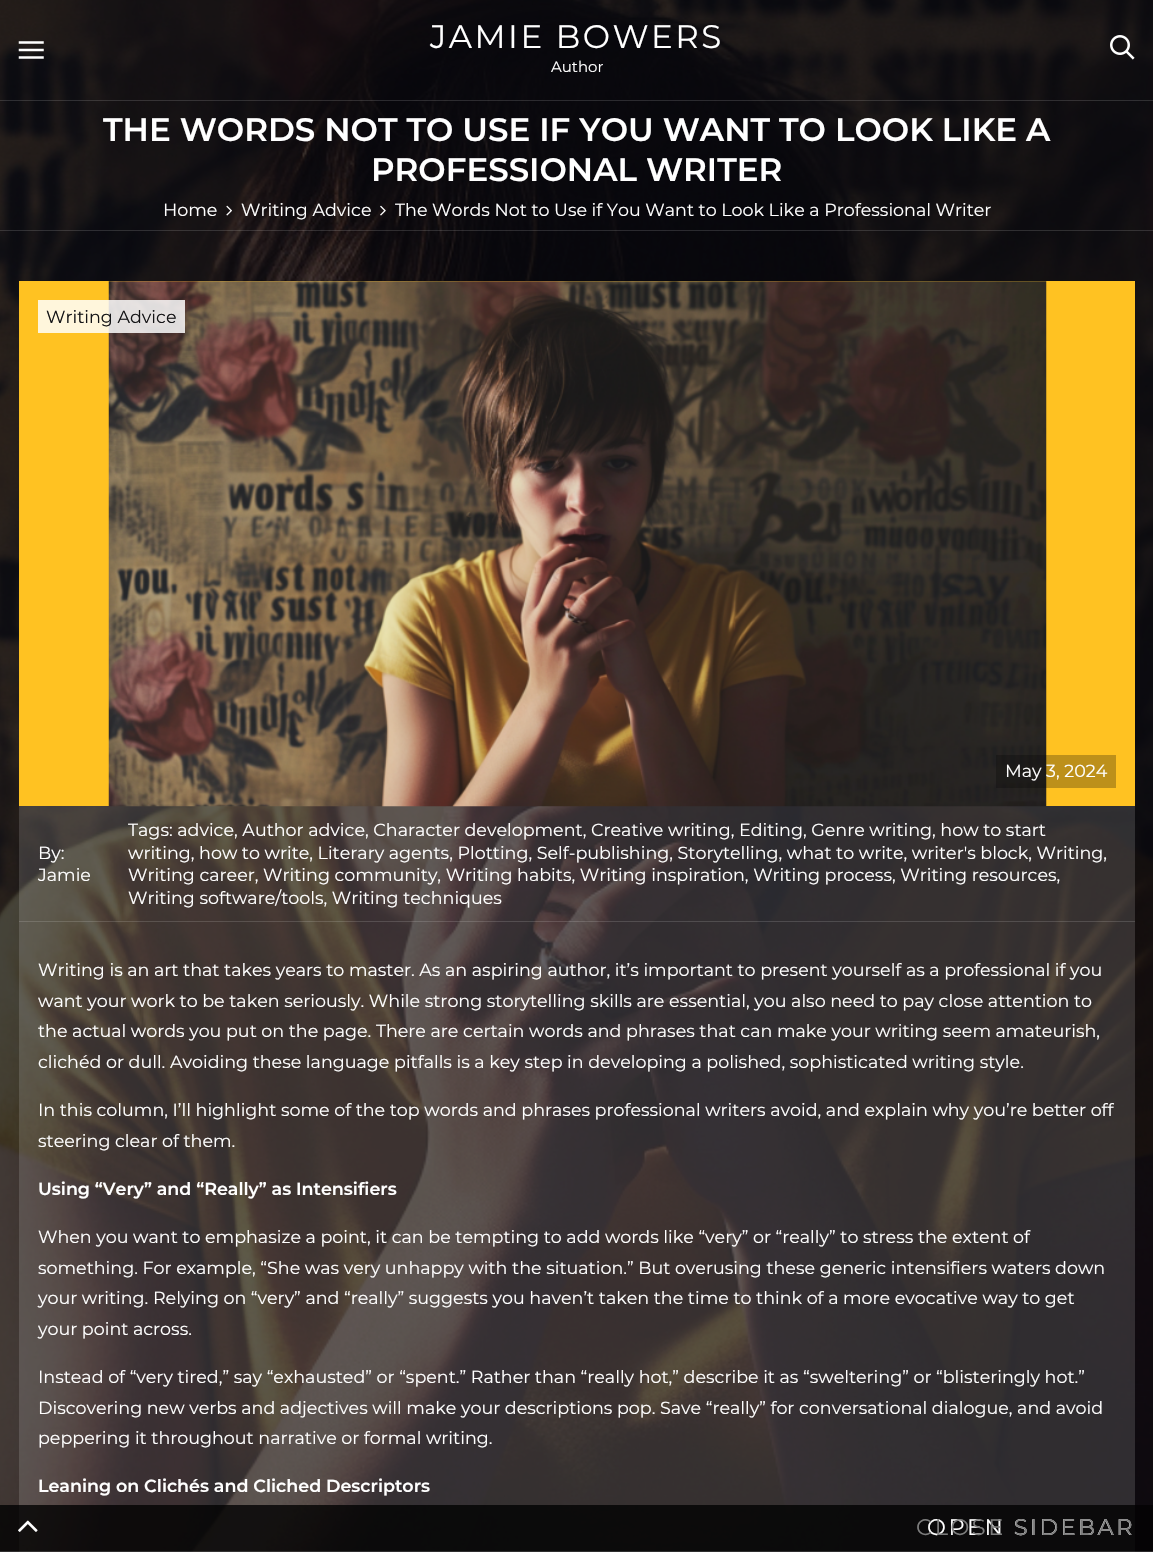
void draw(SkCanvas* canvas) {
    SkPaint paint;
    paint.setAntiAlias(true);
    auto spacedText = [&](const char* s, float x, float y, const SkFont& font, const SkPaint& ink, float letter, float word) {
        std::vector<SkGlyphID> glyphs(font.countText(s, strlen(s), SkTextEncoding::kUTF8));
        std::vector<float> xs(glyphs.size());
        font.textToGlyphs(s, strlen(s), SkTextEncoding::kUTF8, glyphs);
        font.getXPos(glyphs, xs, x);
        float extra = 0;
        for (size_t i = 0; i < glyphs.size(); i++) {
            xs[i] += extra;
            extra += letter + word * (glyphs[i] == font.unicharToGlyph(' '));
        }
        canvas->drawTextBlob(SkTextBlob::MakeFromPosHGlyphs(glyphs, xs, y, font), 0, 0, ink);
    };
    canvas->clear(0xFFFFFFFF);
    canvas->drawImageRect(SkImages::DeferredFromEncodedData(SkData::MakeFromFileName("img1.png")), SkRect::MakeXYWH(0, 0, 1153, 1552), SkSamplingOptions());
    paint.setColor(0x24FFFFFF);
    canvas->drawRect(SkRect::MakeXYWH(0, 100, 1153, 1), paint);
    canvas->drawImageRect(SkImages::DeferredFromEncodedData(SkData::MakeFromFileName("img2.png")), SkRect::MakeXYWH(18, 41, 26, 18), SkSamplingOptions());
    SkFont font1(fontMgr->matchFamilyStyle("Montserrat", SkFontStyle::Normal()), 32.5f);
    font1.setSubpixel(true);
    paint.setColor(0xFFFFFFFF);
    spacedText("JAMIE BOWERS", 430, 48, font1, paint, 2.5f, 0);
    SkFont font2(fontMgr->matchFamilyStyle("Montserrat", SkFontStyle::Normal()), 15);
    font2.setSubpixel(true);
    canvas->drawString("Author", 551, 72, font2, paint);
    canvas->drawImageRect(SkImages::DeferredFromEncodedData(SkData::MakeFromFileName("img3.png")), SkRect::MakeXYWH(1110, 35, 25, 25), SkSamplingOptions());
    paint.setColor(0x24FFFFFF);
    canvas->drawRect(SkRect::MakeXYWH(0, 230, 1153, 1), paint);
    SkFont font3(fontMgr->matchFamilyStyle("Montserrat", SkFontStyle(600, SkFontStyle::kNormal_Width, SkFontStyle::kUpright_Slant)), 32.5f);
    font3.setSubpixel(true);
    paint.setColor(0xFFFFFFFF);
    canvas->drawString("THE WORDS NOT TO USE IF YOU WANT TO LOOK LIKE A", 103, 141, font3, paint);
    canvas->drawString("PROFESSIONAL WRITER", 371, 181, font3, paint);
    SkFont font4(fontMgr->matchFamilyStyle("Montserrat", SkFontStyle::Normal()), 17.5f);
    font4.setSubpixel(true);
    canvas->drawString("Home", 163, 216, font4, paint);
    canvas->drawImageRect(SkImages::DeferredFromEncodedData(SkData::MakeFromFileName("img4.png")), SkRect::MakeXYWH(226, 205, 6, 11), SkSamplingOptions());
    canvas->drawString("Writing Advice", 241, 216, font4, paint);
    canvas->drawImageRect(SkImages::DeferredFromEncodedData(SkData::MakeFromFileName("img5.png")), SkRect::MakeXYWH(380, 205, 6, 11), SkSamplingOptions());
    canvas->drawString("The Words Not to Use if You Want to Look Like a Professional Writer", 395, 216, font4, paint);
    paint.setColor(0x24FFFFFF);
    canvas->drawRect(SkRect::MakeXYWH(19, 806, 1116, 746), paint);
    paint.setColor(0xFFFFC222);
    canvas->drawRect(SkRect::MakeXYWH(19, 281, 1116, 525), paint);
    canvas->drawImageRect(SkImages::DeferredFromEncodedData(SkData::MakeFromFileName("img6.png")), SkRect::MakeXYWH(108, 281, 939, 526), SkSamplingOptions());
    paint.setColor(0xD6FFFFFF);
    canvas->drawRect(SkRect::MakeXYWH(38, 300, 147, 33), paint);
    paint.setColor(0xFF141416);
    canvas->drawString("Writing Advice", 46, 323, font4, paint);
    paint.setColor(0x42000000);
    canvas->drawRect(SkRect::MakeXYWH(996, 755, 120, 33), paint);
    paint.setColor(0xFFFFFFFF);
    canvas->drawString("May 3, 2024", 1005, 777, font4, paint);
    canvas->drawString("By:", 38, 859, font4, paint);
    canvas->drawString("Jamie", 38, 881, font4, paint);
    canvas->drawString("Tags: advice, Author advice, Character development, Creative writing, Editing, Genre writing, how to start", 128, 836, font4, paint);
    canvas->drawString("writing, how to write, Literary agents, Plotting, Self-publishing, Storytelling, what to write, writer's block, Writing,", 128, 859, font4, paint);
    canvas->drawString("Writing career, Writing community, Writing habits, Writing inspiration, Writing process, Writing resources,", 128, 881, font4, paint);
    canvas->drawString("Writing software/tools, Writing techniques", 128, 904, font4, paint);
    paint.setColor(0x24FFFFFF);
    canvas->drawRect(SkRect::MakeXYWH(19, 921, 1116, 1), paint);
    paint.setColor(0xFFFFFFFF);
    canvas->drawString("Writing is an art that takes years to master. As an aspiring author, it’s important to present yourself as a professional if you", 38, 976, font4, paint);
    canvas->drawString("want your work to be taken seriously. While strong storytelling skills are essential, you also need to pay close attention to", 38, 1007, font4, paint);
    canvas->drawString("the actual words you put on the page. There are certain words and phrases that can make your writing seem amateurish,", 38, 1037, font4, paint);
    canvas->drawString("clichéd or dull. Avoiding these language pitfalls is a key step in developing a polished, sophisticated writing style.", 38, 1068, font4, paint);
    canvas->drawString("In this column, I’ll highlight some of the top words and phrases professional writers avoid, and explain why you’re better off", 38, 1116, font4, paint);
    canvas->drawString("steering clear of them.", 38, 1147, font4, paint);
    SkFont font5(fontMgr->matchFamilyStyle("Montserrat", SkFontStyle(600, SkFontStyle::kNormal_Width, SkFontStyle::kUpright_Slant)), 17.5f);
    font5.setSubpixel(true);
    canvas->drawString("Using “Very” and “Really” as Intensifiers", 38, 1195, font5, paint);
    canvas->drawString("When you want to emphasize a point, it can be tempting to add words like “very” or “really” to stress the extent of", 38, 1243, font4, paint);
    canvas->drawString("something. For example, “She was very unhappy with the situation.” But overusing these generic intensifiers waters down", 38, 1274, font4, paint);
    canvas->drawString("your writing. Relying on “very” and “really” suggests you haven’t taken the time to think of a more evocative way to get", 38, 1304, font4, paint);
    canvas->drawString("your point across.", 38, 1335, font4, paint);
    canvas->drawString("Instead of “very tired,” say “exhausted” or “spent.” Rather than “really hot,” describe it as “sweltering” or “blisteringly hot.”", 38, 1383, font4, paint);
    canvas->drawString("Discovering new verbs and adjectives will make your descriptions pop. Save “really” for conversational dialogue, and avoid", 38, 1414, font4, paint);
    canvas->drawString("peppering it throughout narrative or formal writing.", 38, 1444, font4, paint);
    canvas->drawString("Leaning on Clichés and Cliched Descriptors", 38, 1492, font5, paint);
    paint.setColor(0xB3000000);
    canvas->drawRect(SkRect::MakeXYWH(0, 1505, 1153, 47), paint);
    paint.setColor(0x54000000);
    canvas->drawRect(SkRect::MakeXYWH(0, 1505, 1135, 47), paint);
    paint.setColor(0x24FFFFFF);
    canvas->drawRect(SkRect::MakeXYWH(0, 1551, 1153, 1), paint);
    SkFont font6(fontMgr->matchFamilyStyle("Montserrat", SkFontStyle::Normal()), 22.5f);
    font6.setSubpixel(true);
    paint.setColor(0xFFFFFFFF);
    spacedText("OPEN SIDEBAR", 927, 1535, font6, paint, 2.5f, 0);
    paint.setColor(0xFF7C7C7C);
    spacedText("CLOSE SIDEBAR", 916, 1535, font6, paint, 2.5f, 0);
    canvas->drawImageRect(SkImages::DeferredFromEncodedData(SkData::MakeFromFileName("img7.png")), SkRect::MakeXYWH(18, 1520, 20, 12), SkSamplingOptions());
}
